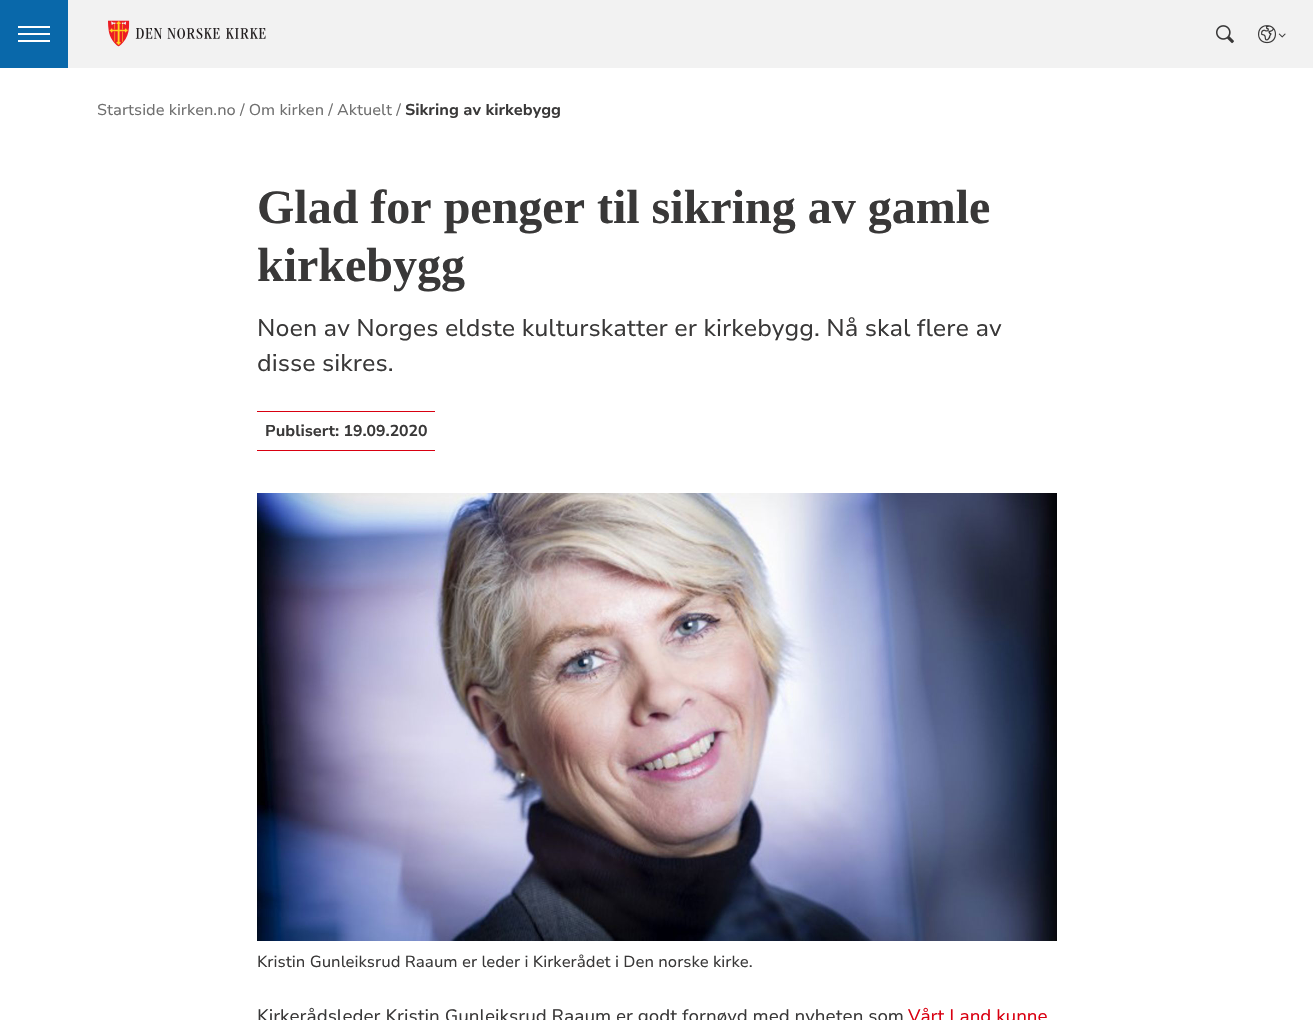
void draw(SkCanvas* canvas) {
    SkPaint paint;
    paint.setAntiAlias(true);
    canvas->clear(0xFFFFFFFF);
    paint.setColor(0xFFF2F2F2);
    canvas->drawRect(SkRect::MakeXYWH(68, 0, 1245, 68), paint);
    paint.setColor(0xFF0968AA);
    canvas->drawRect(SkRect::MakeXYWH(0, 0, 68, 68), paint);
    paint.setColor(0xFFFFFFFF);
    canvas->drawRect(SkRect::MakeXYWH(18, 26, 32, 2), paint);
    canvas->drawRect(SkRect::MakeXYWH(18, 33, 32, 2), paint);
    canvas->drawRect(SkRect::MakeXYWH(18, 40, 32, 2), paint);
    canvas->drawImageRect(SkImages::DeferredFromEncodedData(SkData::MakeFromFileName("img1.png")), SkRect::MakeXYWH(108, 20, 158, 27), SkSamplingOptions());
    canvas->drawImageRect(SkImages::DeferredFromEncodedData(SkData::MakeFromFileName("img2.png")), SkRect::MakeXYWH(1216, 25, 18, 19), SkSamplingOptions());
    canvas->drawImageRect(SkImages::DeferredFromEncodedData(SkData::MakeFromFileName("img3.png")), SkRect::MakeXYWH(1258, 25, 18, 19), SkSamplingOptions());
    canvas->drawImageRect(SkImages::DeferredFromEncodedData(SkData::MakeFromFileName("img4.png")), SkRect::MakeXYWH(1278, 33, 8, 5), SkSamplingOptions());
    SkFont font1(fontMgr->matchFamilyStyle("Nunito Sans", SkFontStyle::Normal()), 15.75f);
    font1.setSubpixel(true);
    paint.setColor(0xFF6F6F6F);
    canvas->drawString("Startside kirken.no / Om kirken / Aktuelt /", 97, 115, font1, paint);
    SkFont font2(fontMgr->matchFamilyStyle("Nunito Sans", SkFontStyle::Bold()), 15.75f);
    font2.setSubpixel(true);
    paint.setColor(0xFF393838);
    canvas->drawString("Sikring av kirkebygg", 405, 115, font2, paint);
    SkFont font3(fontMgr->matchFamilyStyle("Liberation Serif", SkFontStyle::Bold()), 48);
    font3.setSubpixel(true);
    canvas->drawString("Glad for penger til sikring av gamle", 257, 223, font3, paint);
    canvas->drawString("kirkebygg", 257, 281, font3, paint);
    SkFont font4(fontMgr->matchFamilyStyle("Nunito Sans", SkFontStyle::Normal()), 24);
    font4.setSubpixel(true);
    canvas->drawString("Noen av Norges eldste kulturskatter er kirkebygg. Nå skal flere av", 257, 336, font4, paint);
    canvas->drawString("disse sikres.", 257, 371, font4, paint);
    canvas->drawString("Publisert: 19.09.2020", 265, 436, font2, paint);
    paint.setColor(0xFFD90011);
    canvas->drawRect(SkRect::MakeXYWH(257, 411, 178, 1), paint);
    canvas->drawRect(SkRect::MakeXYWH(257, 450, 178, 1), paint);
    canvas->drawImageRect(SkImages::DeferredFromEncodedData(SkData::MakeFromFileName("img5.png")), SkRect::MakeXYWH(257, 493, 800, 448), SkSamplingOptions());
    SkFont font5(fontMgr->matchFamilyStyle("Nunito Sans", SkFontStyle::Normal()), 16);
    font5.setSubpixel(true);
    paint.setColor(0xFF393838);
    canvas->drawString("Kristin Gunleiksrud Raaum er leder i Kirkerådet i Den norske kirke.", 257, 967, font5, paint);
    SkFont font6(fontMgr->matchFamilyStyle("Nunito Sans", SkFontStyle::Normal()), 18);
    font6.setSubpixel(true);
    canvas->drawString("Kirkerådsleder Kristin Gunleiksrud Raaum er godt fornøyd med nyheten som", 257, 1022, font6, paint);
    paint.setColor(0xFFD90011);
    canvas->drawString("Vårt Land kunne", 908, 1022, font6, paint);
}
